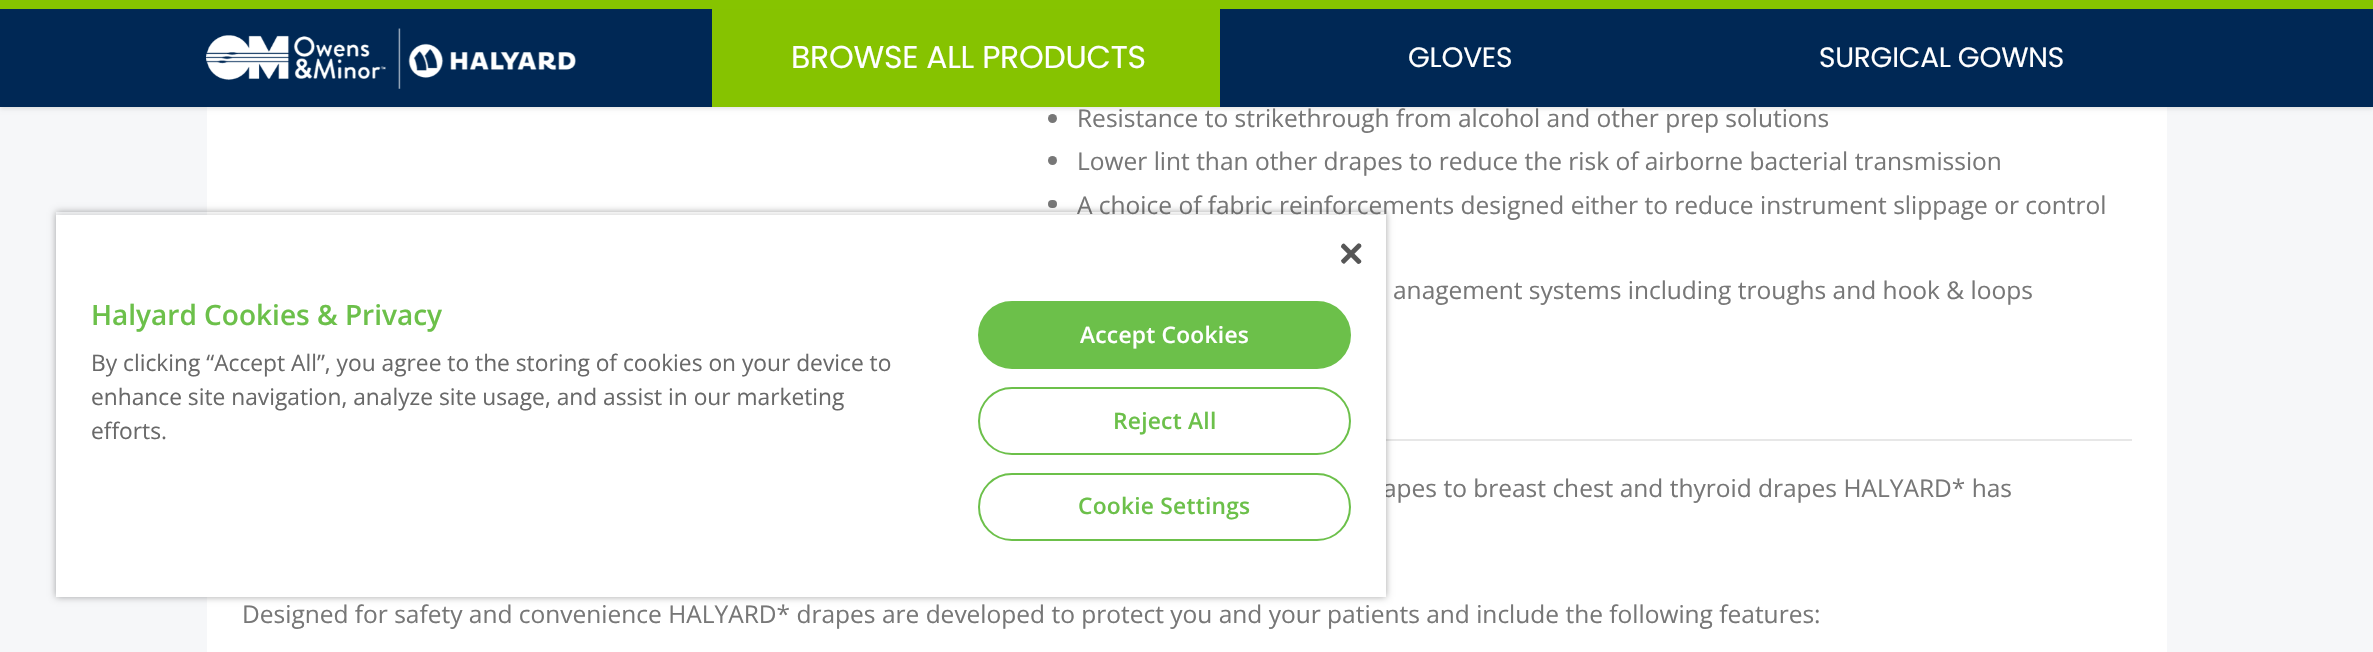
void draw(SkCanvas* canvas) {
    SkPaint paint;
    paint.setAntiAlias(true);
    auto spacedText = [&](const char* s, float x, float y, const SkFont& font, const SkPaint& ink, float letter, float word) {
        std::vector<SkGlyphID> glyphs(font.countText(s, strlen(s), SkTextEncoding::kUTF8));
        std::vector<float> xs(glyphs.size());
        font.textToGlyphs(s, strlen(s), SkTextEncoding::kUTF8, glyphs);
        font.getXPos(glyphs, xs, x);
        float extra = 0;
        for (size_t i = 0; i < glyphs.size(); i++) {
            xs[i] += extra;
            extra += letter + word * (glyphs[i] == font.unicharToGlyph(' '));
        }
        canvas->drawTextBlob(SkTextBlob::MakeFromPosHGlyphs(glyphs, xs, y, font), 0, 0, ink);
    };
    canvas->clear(0xFFF6F7F9);
    paint.setColor(0xFFFFFFFF);
    canvas->drawRect(SkRect::MakeXYWH(207, 107, 1960, 545), paint);
    paint.setColor(0xFF777777);
    canvas->drawCircle(1052.5f, 118.5f, 4.5f, paint);
    paint.setColor(0x1A000000);
    paint.setMaskFilter(SkMaskFilter::MakeBlur(kNormal_SkBlurStyle, 2));
    canvas->drawRect(SkRect::MakeXYWH(0, 2, 2373, 107), paint);
    paint.setMaskFilter(nullptr);
    paint.setColor(0xFF002855);
    canvas->drawRect(SkRect::MakeXYWH(0, 9, 2373, 98), paint);
    paint.setColor(0xFF86C400);
    canvas->drawRect(SkRect::MakeXYWH(0, 0, 2373, 9), paint);
    canvas->drawImageRect(SkImages::DeferredFromEncodedData(SkData::MakeFromFileName("img1.png")), SkRect::MakeXYWH(206, 28, 370, 61), SkSamplingOptions());
    paint.setColor(0xFF86C300);
    canvas->drawRect(SkRect::MakeXYWH(712, 9, 508, 98), paint);
    SkFont font1(fontMgr->matchFamilyStyle("Poppins", SkFontStyle::Normal()), 31.5f);
    font1.setSubpixel(true);
    paint.setColor(0xFFFFFFFF);
    spacedText("BROWSE ALL PRODUCTS", 791, 68, font1, paint, -0.25f, 0);
    SkFont font2(fontMgr->matchFamilyStyle("Poppins", SkFontStyle::Normal()), 28);
    font2.setSubpixel(true);
    spacedText("GLOVES", 1408, 67, font2, paint, -0.25f, 0);
    spacedText("SURGICAL GOWNS", 1819, 67, font2, paint, -0.25f, 0);
    SkFont font3(fontMgr->matchFamilyStyle("Open Sans", SkFontStyle::Normal()), 24.5f);
    font3.setSubpixel(true);
    paint.setColor(0xFF777777);
    canvas->drawString("Resistance to strikethrough from alcohol and other prep solutions", 1077, 127, font3, paint);
    canvas->drawCircle(1052.5f, 160.5f, 4.5f, paint);
    canvas->drawString("Lower lint than other drapes to reduce the risk of airborne bacterial transmission", 1077, 170, font3, paint);
    canvas->drawRoundRect(SkRect::MakeXYWH(1048, 200, 9, 8), 4, 4, paint);
    canvas->drawString("A choice of fabric reinforcements designed either to reduce instrument slippage or control", 1077, 214, font3, paint);
    canvas->drawString("anagement systems including troughs and hook & loops", 1393, 299, font3, paint);
    paint.setColor(0xFFE7E7E7);
    canvas->drawRect(SkRect::MakeXYWH(1386, 439, 746, 2), paint);
    paint.setColor(0xFF777777);
    canvas->drawString("apes to breast chest and thyroid drapes HALYARD* has", 1383, 497, font3, paint);
    canvas->drawString("Designed for safety and convenience HALYARD* drapes are developed to protect you and your patients and include the following features:", 242, 623, font3, paint);
    canvas->save();
    canvas->clipPath(SkPathBuilder(SkPathFillType::kEvenOdd).moveTo(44, 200).lineTo(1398, 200).lineTo(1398, 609).lineTo(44, 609).close().moveTo(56, 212).lineTo(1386, 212).lineTo(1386, 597).lineTo(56, 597).close().detach(), true);
    paint.setColor(0x59000000);
    paint.setMaskFilter(SkMaskFilter::MakeBlur(kNormal_SkBlurStyle, 3.5f));
    canvas->drawRect(SkRect::MakeXYWH(56, 212, 1330, 385), paint);
    paint.setMaskFilter(nullptr);
    canvas->restore();
    canvas->save();
    canvas->clipRect(SkRect::MakeXYWH(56, 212, 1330, 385));
    paint.setColor(0x33000000);
    paint.setMaskFilter(SkMaskFilter::MakeBlur(kNormal_SkBlurStyle, 3.5f));
    canvas->drawRect(SkRect::MakeXYWH(56, 215, 1330, 382), paint);
    paint.setMaskFilter(nullptr);
    canvas->restore();
    paint.setColor(0xFFFFFFFF);
    canvas->drawRect(SkRect::MakeXYWH(56, 215, 1330, 382), paint);
    canvas->drawImageRect(SkImages::DeferredFromEncodedData(SkData::MakeFromFileName("img2.png")), SkRect::MakeXYWH(1341, 243, 21, 21), SkSamplingOptions());
    SkFont font4(fontMgr->matchFamilyStyle("Open Sans", SkFontStyle(600, SkFontStyle::kNormal_Width, SkFontStyle::kUpright_Slant)), 28);
    font4.setSubpixel(true);
    paint.setColor(0xFF6CC04A);
    canvas->drawString("Halyard Cookies & Privacy", 91, 325, font4, paint);
    SkFont font5(fontMgr->matchFamilyStyle("Open Sans", SkFontStyle::Normal()), 22.75f);
    font5.setSubpixel(true);
    paint.setColor(0xFF696969);
    canvas->drawString("By clicking “Accept All”, you agree to the storing of cookies on your device to", 91, 371, font5, paint);
    canvas->drawString("enhance site navigation, analyze site usage, and assist in our marketing", 91, 405, font5, paint);
    canvas->drawString("efforts.", 91, 439, font5, paint);
    paint.setColor(0xFF6CC04A);
    canvas->drawRoundRect(SkRect::MakeXYWH(979, 302, 371, 66), 33, 33, paint);
    paint.setStyle(SkPaint::kStroke_Style);
    paint.setStrokeWidth(2);
    canvas->drawRoundRect(SkRect::MakeXYWH(979, 302, 371, 66), 33, 33, paint);
    SkFont font6(fontMgr->matchFamilyStyle("Open Sans", SkFontStyle(600, SkFontStyle::kNormal_Width, SkFontStyle::kUpright_Slant)), 22.75f);
    font6.setSubpixel(true);
    paint.setStyle(SkPaint::kFill_Style);
    paint.setColor(0xFFFFFFFF);
    spacedText("Accept Cookies", 1080, 343, font6, paint, 0.25f, 0);
    paint.setStyle(SkPaint::kStroke_Style);
    paint.setColor(0xFF6CC04A);
    canvas->drawRoundRect(SkRect::MakeXYWH(979, 388, 371, 66), 33, 33, paint);
    paint.setStyle(SkPaint::kFill_Style);
    spacedText("Reject All", 1113, 429, font6, paint, 0.25f, 0);
    paint.setStyle(SkPaint::kStroke_Style);
    canvas->drawRoundRect(SkRect::MakeXYWH(979, 474, 371, 66), 33, 33, paint);
    paint.setStyle(SkPaint::kFill_Style);
    spacedText("Cookie Settings", 1078, 514, font6, paint, 0.25f, 0);
}
